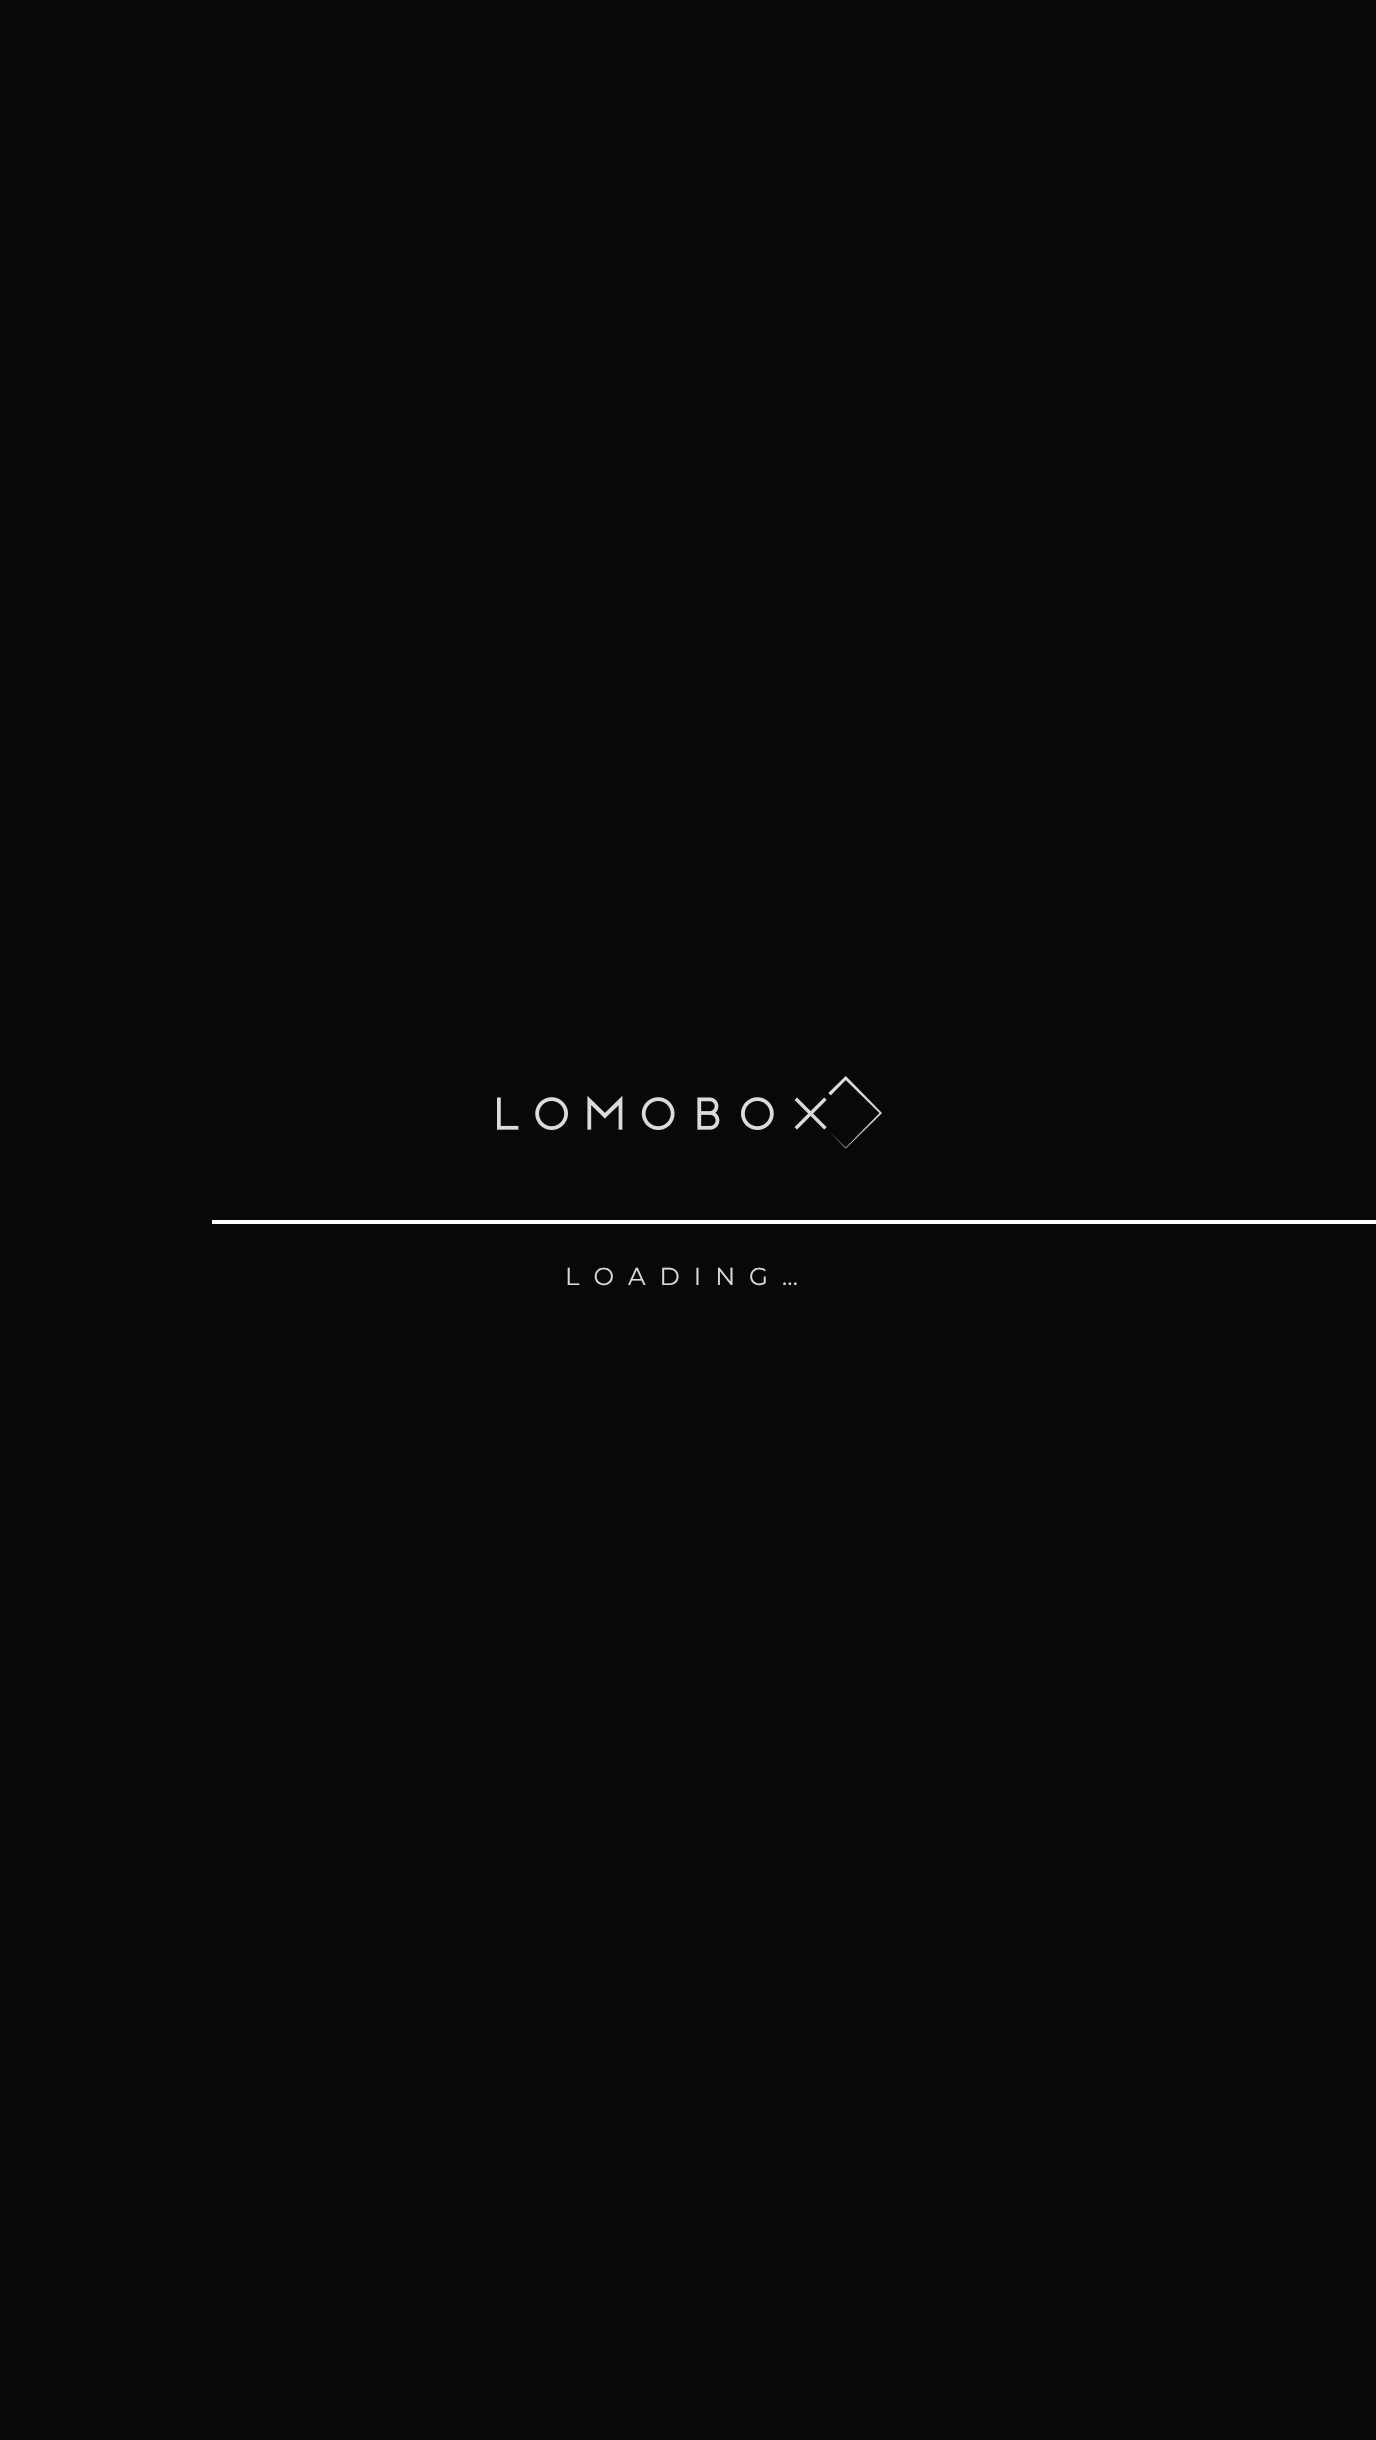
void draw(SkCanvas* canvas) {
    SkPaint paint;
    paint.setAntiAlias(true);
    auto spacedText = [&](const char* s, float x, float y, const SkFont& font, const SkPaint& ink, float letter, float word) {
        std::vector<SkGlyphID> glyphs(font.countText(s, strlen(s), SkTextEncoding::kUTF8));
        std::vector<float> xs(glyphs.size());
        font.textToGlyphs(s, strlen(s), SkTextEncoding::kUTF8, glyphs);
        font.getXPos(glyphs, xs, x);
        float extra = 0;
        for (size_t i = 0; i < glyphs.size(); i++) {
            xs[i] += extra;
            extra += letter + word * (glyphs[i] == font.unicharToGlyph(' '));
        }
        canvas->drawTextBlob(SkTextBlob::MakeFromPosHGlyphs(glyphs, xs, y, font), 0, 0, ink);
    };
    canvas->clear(0xFF090808);
    paint.setColor(0xFFFFFFFF);
    canvas->drawRect(SkRect::MakeXYWH(212, 1220, 1164, 4), paint);
    canvas->drawImageRect(SkImages::DeferredFromEncodedData(SkData::MakeFromFileName("img1.png")), SkRect::MakeXYWH(497, 1076, 385, 73), SkSamplingOptions());
    SkFont font1(fontMgr->matchFamilyStyle("Montserrat", SkFontStyle(100, SkFontStyle::kNormal_Width, SkFontStyle::kUpright_Slant)), 24.5f);
    font1.setSubpixel(true);
    paint.setColor(0xFFDADADA);
    spacedText("LOADING", 565, 1285, font1, paint, 14, 0);
    spacedText("…", 782, 1285, font1, paint, 14, 0);
}
